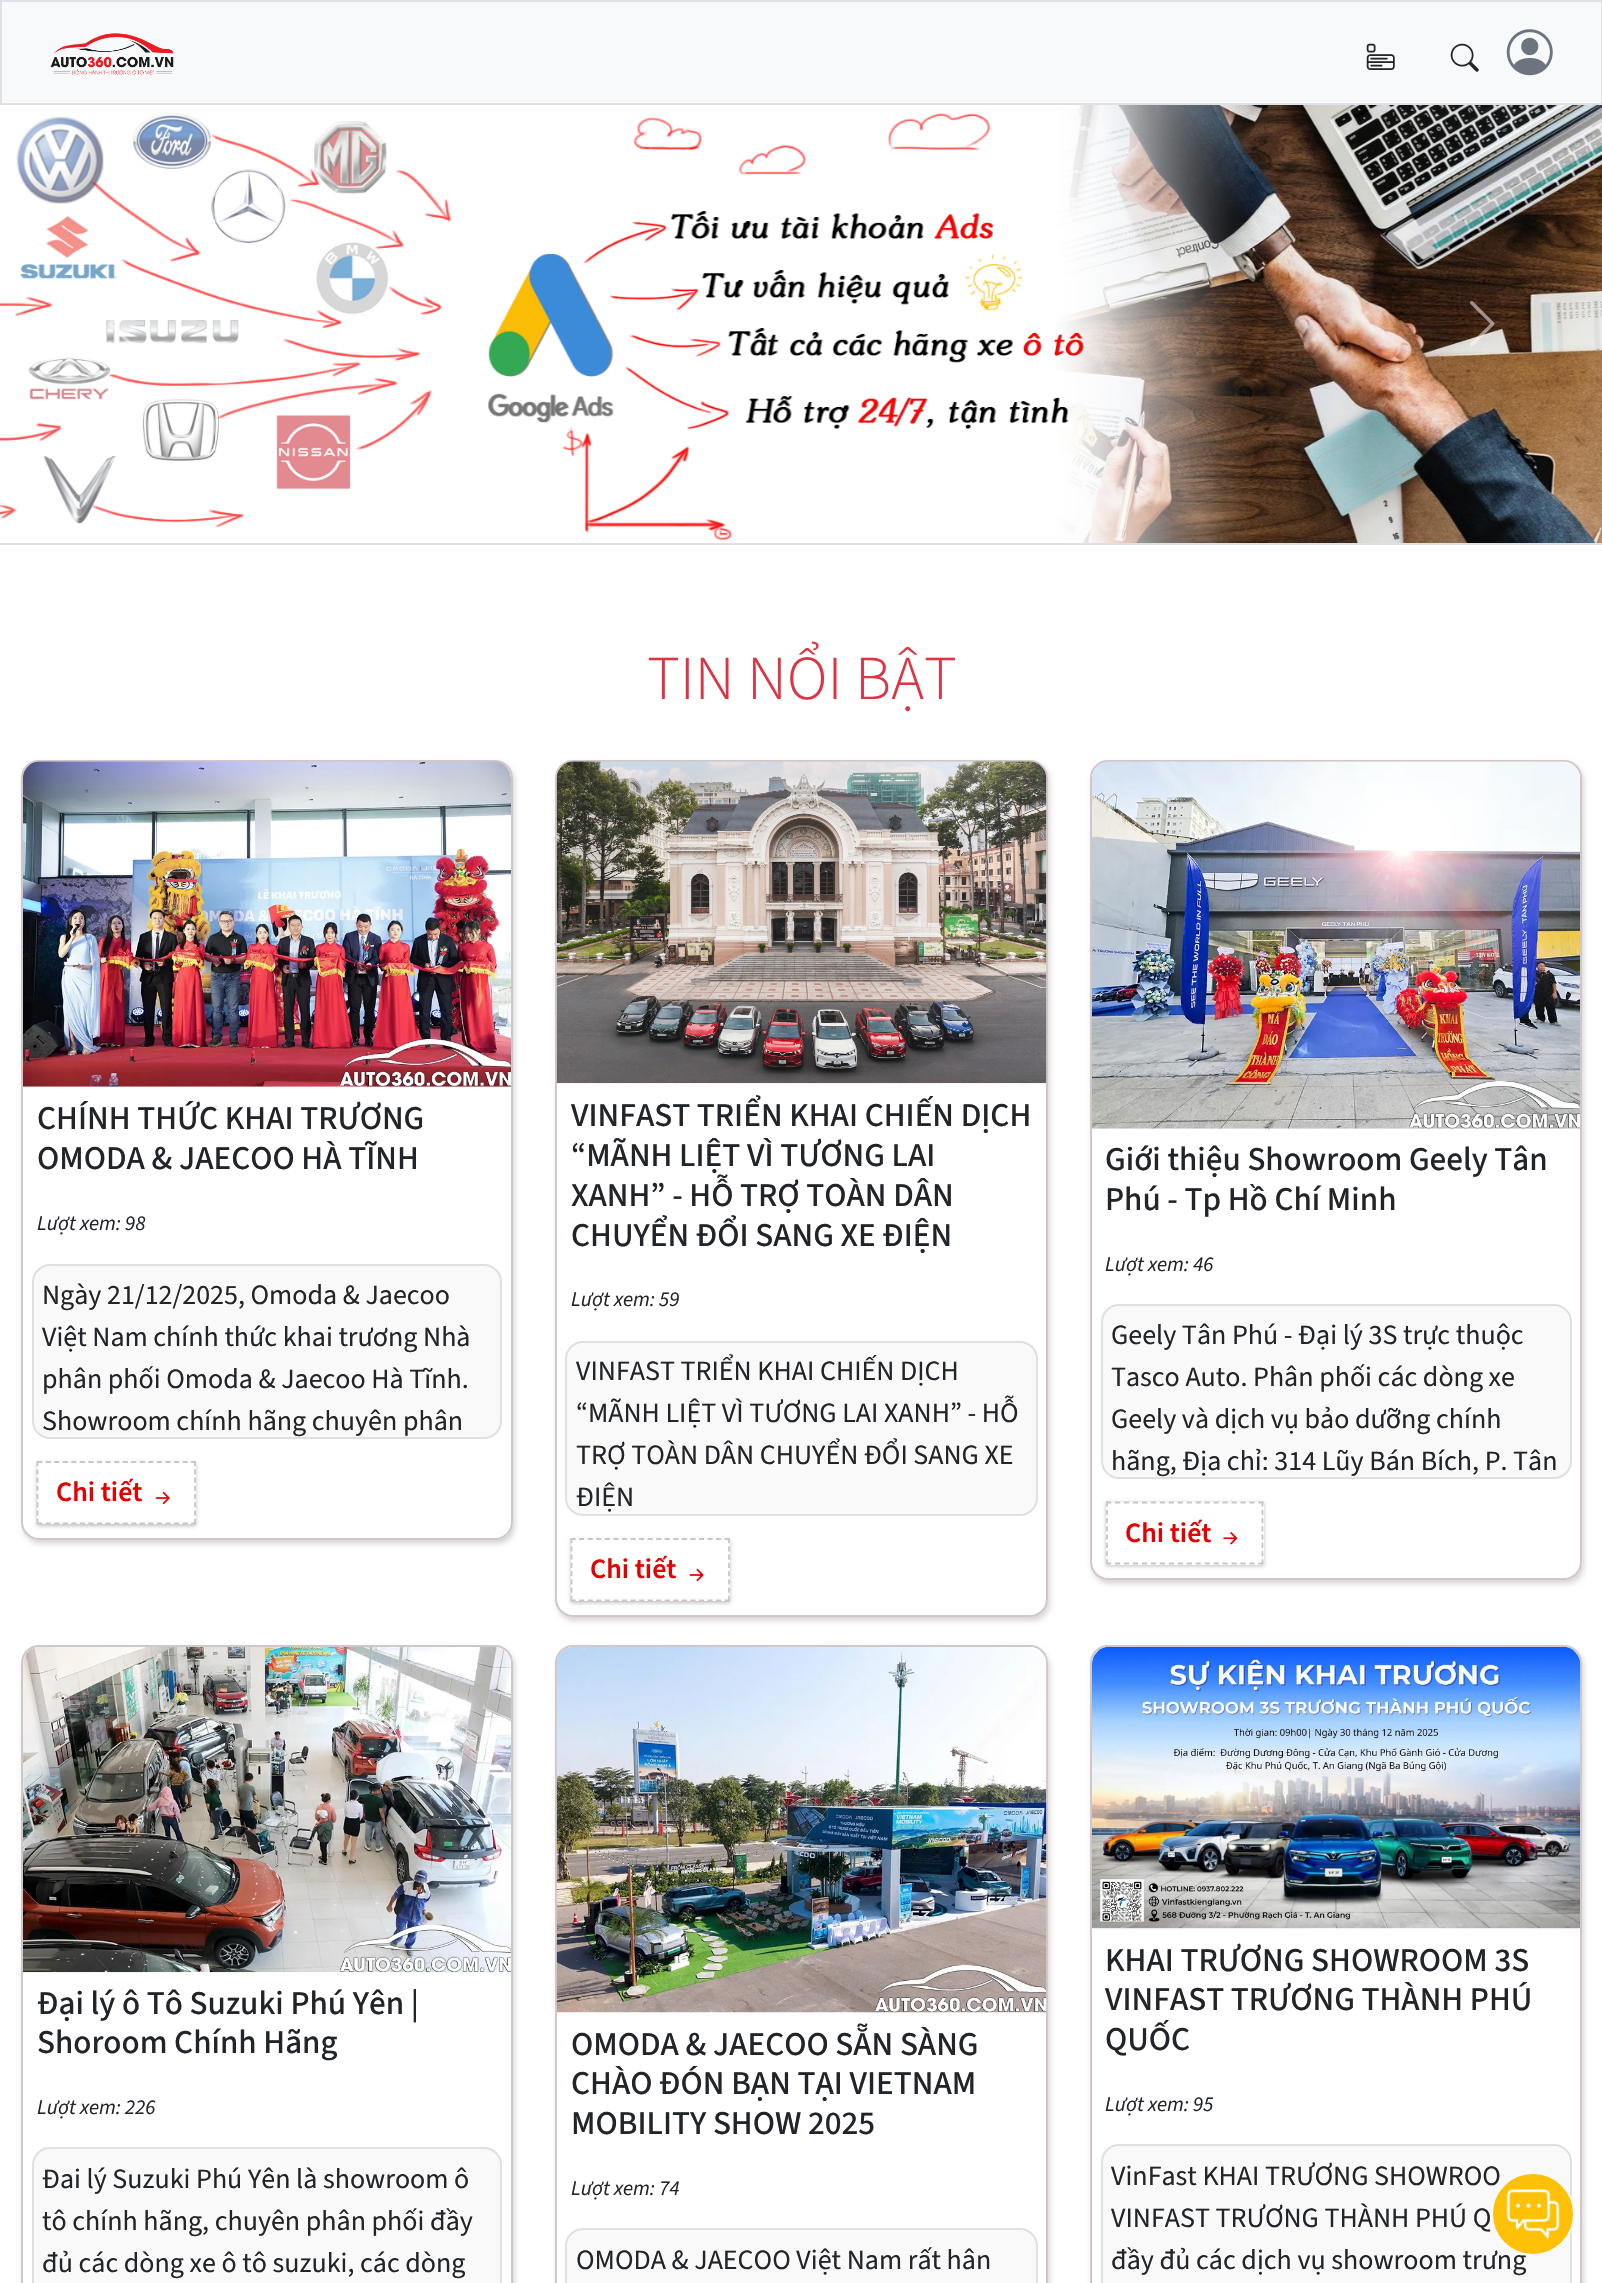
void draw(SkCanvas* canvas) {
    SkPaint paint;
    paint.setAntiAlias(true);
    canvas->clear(0xFFFFFFFF);
    paint.setColor(0xFFF8F9FA);
    canvas->drawRect(SkRect::MakeXYWH(1, 1, 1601, 103), paint);
    paint.setStyle(SkPaint::kStroke_Style);
    paint.setStrokeWidth(2);
    paint.setColor(0xFFDEE2E6);
    canvas->drawRect(SkRect::MakeXYWH(1, 1, 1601, 103), paint);
    canvas->drawImageRect(SkImages::DeferredFromEncodedData(SkData::MakeFromFileName("img1.png")), SkRect::MakeXYWH(50, 33, 124, 43), SkSamplingOptions());
    canvas->drawImageRect(SkImages::DeferredFromEncodedData(SkData::MakeFromFileName("img2.png")), SkRect::MakeXYWH(1366, 43, 29, 27), SkSamplingOptions());
    canvas->drawImageRect(SkImages::DeferredFromEncodedData(SkData::MakeFromFileName("img3.png")), SkRect::MakeXYWH(1450, 43, 29, 29), SkSamplingOptions());
    canvas->drawImageRect(SkImages::DeferredFromEncodedData(SkData::MakeFromFileName("img4.png")), SkRect::MakeXYWH(1506, 29, 47, 47), SkSamplingOptions());
    paint.setStyle(SkPaint::kFill_Style);
    canvas->drawRect(SkRect::MakeXYWH(0, 543, 1602, 2), paint);
    canvas->drawImageRect(SkImages::DeferredFromEncodedData(SkData::MakeFromFileName("img5.png")), SkRect::MakeXYWH(0, 105, 1602, 438), SkSamplingOptions());
    canvas->drawImageRect(SkImages::DeferredFromEncodedData(SkData::MakeFromFileName("img6.png")), SkRect::MakeXYWH(108, 320, 23, 23), SkSamplingOptions());
    canvas->drawImageRect(SkImages::DeferredFromEncodedData(SkData::MakeFromFileName("img7.png")), SkRect::MakeXYWH(1470, 301, 25, 46), SkSamplingOptions());
    SkFont font1(fontMgr->matchFamilyStyle("Source Sans 3", SkFontStyle(300, SkFontStyle::kNormal_Width, SkFontStyle::kUpright_Slant)), 62.5f);
    font1.setSubpixel(true);
    paint.setColor(0xFFDC3545);
    canvas->drawString("TIN NỔI BẬT", 647, 699, font1, paint);
    canvas->save();
    canvas->clipPath(SkPathBuilder(SkPathFillType::kEvenOdd).moveTo(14, 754).lineTo(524, 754).lineTo(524, 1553).lineTo(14, 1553).close().moveTo(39, 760).lineTo(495, 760).cubicTo(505, 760, 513, 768, 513, 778).lineTo(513, 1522).cubicTo(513, 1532, 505, 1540, 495, 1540).lineTo(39, 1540).cubicTo(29, 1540, 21, 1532, 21, 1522).lineTo(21, 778).cubicTo(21, 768, 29, 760, 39, 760).close().detach(), true);
    paint.setColor(0xFFDCD7D7);
    paint.setMaskFilter(SkMaskFilter::MakeBlur(kNormal_SkBlurStyle, 2.5f));
    canvas->drawRoundRect(SkRect::MakeXYWH(23, 763, 492, 781), 18, 18, paint);
    paint.setMaskFilter(nullptr);
    canvas->restore();
    paint.setStyle(SkPaint::kStroke_Style);
    paint.setColor(0xFFD0C8C8);
    canvas->drawRoundRect(SkRect::MakeXYWH(22, 761, 490, 778), 17, 17, paint);
    canvas->drawImageRect(SkImages::DeferredFromEncodedData(SkData::MakeFromFileName("img8.png")), SkRect::MakeXYWH(23, 761, 488, 326), SkSamplingOptions());
    SkFont font2(fontMgr->matchFamilyStyle("Source Sans 3", SkFontStyle(500, SkFontStyle::kNormal_Width, SkFontStyle::kUpright_Slant)), 33.25f);
    font2.setSubpixel(true);
    paint.setStyle(SkPaint::kFill_Style);
    paint.setColor(0xFF212529);
    canvas->drawString("CHÍNH THỨC KHAI TRƯƠNG", 37, 1129, font2, paint);
    canvas->drawString("OMODA & JAECOO HÀ TĨNH", 37, 1169, font2, paint);
    SkFont font3(fontMgr->matchFamilyStyle("Source Sans 3", SkFontStyle::Italic()), 21);
    font3.setSubpixel(true);
    canvas->drawString("Lượt xem: 98", 37, 1230, font3, paint);
    paint.setColor(0xFFF9F9F9);
    canvas->drawRoundRect(SkRect::MakeXYWH(33, 1265, 468, 173), 17, 17, paint);
    paint.setStyle(SkPaint::kStroke_Style);
    paint.setColor(0xFFE0E0E0);
    canvas->drawRoundRect(SkRect::MakeXYWH(33, 1265, 468, 173), 17, 17, paint);
    SkFont font4(fontMgr->matchFamilyStyle("Source Sans 3", SkFontStyle::Normal()), 28);
    font4.setSubpixel(true);
    paint.setStyle(SkPaint::kFill_Style);
    paint.setColor(0xFF212529);
    canvas->drawString("Ngày 21/12/2025, Omoda & Jaecoo", 42, 1304, font4, paint);
    canvas->drawString("Việt Nam chính thức khai trương Nhà", 42, 1346, font4, paint);
    canvas->drawString("phân phối Omoda & Jaecoo Hà Tĩnh.", 42, 1388, font4, paint);
    canvas->drawString("Showroom chính hãng chuyên phân", 42, 1430, font4, paint);
    canvas->save();
    canvas->clipPath(SkPathBuilder(SkPathFillType::kEvenOdd).moveTo(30, 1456).lineTo(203, 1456).lineTo(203, 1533).lineTo(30, 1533).close().moveTo(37, 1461).lineTo(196, 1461).lineTo(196, 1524).lineTo(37, 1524).close().detach(), true);
    paint.setColor(0x3D000000);
    paint.setMaskFilter(SkMaskFilter::MakeBlur(kNormal_SkBlurStyle, 2));
    canvas->drawRect(SkRect::MakeXYWH(37, 1463, 159, 63), paint);
    paint.setMaskFilter(nullptr);
    canvas->restore();
    paint.setStyle(SkPaint::kStroke_Style);
    paint.setStrokeWidth(1.8f);
    paint.setColor(0xFFCEC4C4);
    paint.setPathEffect(SkDashPathEffect::Make({{5.25f, 3.31f}}, 0));
    canvas->drawPath(SkPathBuilder().moveTo(37, 1462).lineTo(196, 1462).detach(), paint);
    paint.setPathEffect(nullptr);
    paint.setPathEffect(SkDashPathEffect::Make({{5.25f, 2.99f}}, 0));
    canvas->drawPath(SkPathBuilder().moveTo(195, 1461).lineTo(195, 1524).detach(), paint);
    paint.setPathEffect(nullptr);
    paint.setPathEffect(SkDashPathEffect::Make({{5.25f, 3.31f}}, 0));
    canvas->drawPath(SkPathBuilder().moveTo(37, 1523.5f).lineTo(196, 1523.5f).detach(), paint);
    paint.setPathEffect(nullptr);
    paint.setPathEffect(SkDashPathEffect::Make({{5.25f, 2.99f}}, 0));
    canvas->drawPath(SkPathBuilder().moveTo(37.5f, 1461).lineTo(37.5f, 1524).detach(), paint);
    paint.setPathEffect(nullptr);
    SkFont font5(fontMgr->matchFamilyStyle("Source Sans 3", SkFontStyle(600, SkFontStyle::kNormal_Width, SkFontStyle::kUpright_Slant)), 28);
    font5.setSubpixel(true);
    paint.setStyle(SkPaint::kFill_Style);
    paint.setColor(0xFFE70000);
    canvas->drawString("Chi tiết", 56, 1501, font5, paint);
    canvas->drawImageRect(SkImages::DeferredFromEncodedData(SkData::MakeFromFileName("img9.png")), SkRect::MakeXYWH(155, 1491, 15, 14), SkSamplingOptions());
    canvas->save();
    canvas->clipPath(SkPathBuilder(SkPathFillType::kEvenOdd).moveTo(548, 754).lineTo(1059, 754).lineTo(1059, 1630).lineTo(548, 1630).close().moveTo(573, 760).lineTo(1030, 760).cubicTo(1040, 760, 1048, 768, 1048, 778).lineTo(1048, 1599).cubicTo(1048, 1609, 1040, 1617, 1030, 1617).lineTo(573, 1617).cubicTo(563, 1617, 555, 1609, 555, 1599).lineTo(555, 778).cubicTo(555, 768, 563, 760, 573, 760).close().detach(), true);
    paint.setColor(0xFFDCD7D7);
    paint.setMaskFilter(SkMaskFilter::MakeBlur(kNormal_SkBlurStyle, 2.5f));
    canvas->drawRoundRect(SkRect::MakeXYWH(557, 763, 493, 858), 18, 18, paint);
    paint.setMaskFilter(nullptr);
    canvas->restore();
    paint.setStyle(SkPaint::kStroke_Style);
    paint.setStrokeWidth(2);
    paint.setColor(0xFFD0C8C8);
    canvas->drawRoundRect(SkRect::MakeXYWH(556, 761, 491, 855), 17, 17, paint);
    canvas->drawImageRect(SkImages::DeferredFromEncodedData(SkData::MakeFromFileName("img10.png")), SkRect::MakeXYWH(556, 761, 491, 323), SkSamplingOptions());
    paint.setStyle(SkPaint::kFill_Style);
    paint.setColor(0xFF212529);
    canvas->drawString("VINFAST TRIỂN KHAI CHIẾN DỊCH", 571, 1126, font2, paint);
    canvas->drawString("“MÃNH LIỆT VÌ TƯƠNG LAI", 571, 1166, font2, paint);
    canvas->drawString("XANH” - HỖ TRỢ TOÀN DÂN", 571, 1206, font2, paint);
    canvas->drawString("CHUYỂN ĐỔI SANG XE ĐIỆN", 571, 1246, font2, paint);
    canvas->drawString("Lượt xem: 59", 571, 1306, font3, paint);
    paint.setColor(0xFFF9F9F9);
    canvas->drawRoundRect(SkRect::MakeXYWH(566, 1342, 471, 173), 17, 17, paint);
    paint.setStyle(SkPaint::kStroke_Style);
    paint.setColor(0xFFE0E0E0);
    canvas->drawRoundRect(SkRect::MakeXYWH(566, 1342, 471, 173), 17, 17, paint);
    paint.setStyle(SkPaint::kFill_Style);
    paint.setColor(0xFF212529);
    canvas->drawString("VINFAST TRIỂN KHAI CHIẾN DỊCH", 576, 1380, font4, paint);
    canvas->drawString("“MÃNH LIỆT VÌ TƯƠNG LAI XANH” - HỖ", 576, 1422, font4, paint);
    canvas->drawString("TRỢ TOÀN DÂN CHUYỂN ĐỔI SANG XE", 576, 1464, font4, paint);
    canvas->drawString("ĐIỆN", 576, 1506, font4, paint);
    canvas->save();
    canvas->clipPath(SkPathBuilder(SkPathFillType::kEvenOdd).moveTo(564, 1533).lineTo(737, 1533).lineTo(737, 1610).lineTo(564, 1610).close().moveTo(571, 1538).lineTo(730, 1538).lineTo(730, 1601).lineTo(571, 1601).close().detach(), true);
    paint.setColor(0x3D000000);
    paint.setMaskFilter(SkMaskFilter::MakeBlur(kNormal_SkBlurStyle, 2));
    canvas->drawRect(SkRect::MakeXYWH(571, 1540, 159, 63), paint);
    paint.setMaskFilter(nullptr);
    canvas->restore();
    paint.setStyle(SkPaint::kStroke_Style);
    paint.setStrokeWidth(1.8f);
    paint.setColor(0xFFCEC4C4);
    paint.setPathEffect(SkDashPathEffect::Make({{5.25f, 3.31f}}, 0));
    canvas->drawPath(SkPathBuilder().moveTo(570.5f, 1539).lineTo(730, 1539).detach(), paint);
    paint.setPathEffect(nullptr);
    paint.setPathEffect(SkDashPathEffect::Make({{5.25f, 2.99f}}, 0));
    canvas->drawPath(SkPathBuilder().moveTo(729, 1538).lineTo(729, 1601).detach(), paint);
    paint.setPathEffect(nullptr);
    paint.setPathEffect(SkDashPathEffect::Make({{5.25f, 3.31f}}, 0));
    canvas->drawPath(SkPathBuilder().moveTo(570.5f, 1600.5f).lineTo(730, 1600.5f).detach(), paint);
    paint.setPathEffect(nullptr);
    paint.setPathEffect(SkDashPathEffect::Make({{5.25f, 2.99f}}, 0));
    canvas->drawPath(SkPathBuilder().moveTo(571.5f, 1538).lineTo(571.5f, 1601).detach(), paint);
    paint.setPathEffect(nullptr);
    paint.setStyle(SkPaint::kFill_Style);
    paint.setColor(0xFFE70000);
    canvas->drawString("Chi tiết", 590, 1578, font5, paint);
    canvas->drawImageRect(SkImages::DeferredFromEncodedData(SkData::MakeFromFileName("img11.png")), SkRect::MakeXYWH(689, 1568, 15, 14), SkSamplingOptions());
    canvas->save();
    canvas->clipPath(SkPathBuilder(SkPathFillType::kEvenOdd).moveTo(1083, 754).lineTo(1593, 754).lineTo(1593, 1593).lineTo(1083, 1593).close().moveTo(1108, 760).lineTo(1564, 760).cubicTo(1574, 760, 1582, 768, 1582, 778).lineTo(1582, 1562).cubicTo(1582, 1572, 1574, 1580, 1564, 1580).lineTo(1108, 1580).cubicTo(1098, 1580, 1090, 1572, 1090, 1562).lineTo(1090, 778).cubicTo(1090, 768, 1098, 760, 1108, 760).close().detach(), true);
    paint.setColor(0xFFDCD7D7);
    paint.setMaskFilter(SkMaskFilter::MakeBlur(kNormal_SkBlurStyle, 2.5f));
    canvas->drawRoundRect(SkRect::MakeXYWH(1092, 763, 492, 821), 18, 18, paint);
    paint.setMaskFilter(nullptr);
    canvas->restore();
    paint.setStyle(SkPaint::kStroke_Style);
    paint.setStrokeWidth(2);
    paint.setColor(0xFFD0C8C8);
    canvas->drawRoundRect(SkRect::MakeXYWH(1091, 761, 490, 818), 17, 17, paint);
    canvas->drawImageRect(SkImages::DeferredFromEncodedData(SkData::MakeFromFileName("img12.png")), SkRect::MakeXYWH(1092, 761, 488, 368), SkSamplingOptions());
    paint.setStyle(SkPaint::kFill_Style);
    paint.setColor(0xFF212529);
    canvas->drawString("Giới thiệu Showroom Geely Tân", 1105, 1170, font2, paint);
    canvas->drawString("Phú - Tp Hồ Chí Minh", 1105, 1210, font2, paint);
    canvas->drawString("Lượt xem: 46", 1105, 1271, font3, paint);
    paint.setColor(0xFFF9F9F9);
    canvas->drawRoundRect(SkRect::MakeXYWH(1102, 1305, 469, 173), 17, 17, paint);
    paint.setStyle(SkPaint::kStroke_Style);
    paint.setColor(0xFFE0E0E0);
    canvas->drawRoundRect(SkRect::MakeXYWH(1102, 1305, 469, 173), 17, 17, paint);
    paint.setStyle(SkPaint::kFill_Style);
    paint.setColor(0xFF212529);
    canvas->drawString("Geely Tân Phú - Đại lý 3S trực thuộc", 1111, 1344, font4, paint);
    canvas->drawString("Tasco Auto. Phân phối các dòng xe", 1111, 1386, font4, paint);
    canvas->drawString("Geely và dịch vụ bảo dưỡng chính", 1111, 1428, font4, paint);
    canvas->drawString("hãng, Địa chỉ: 314 Lũy Bán Bích, P. Tân", 1111, 1470, font4, paint);
    canvas->save();
    canvas->clipPath(SkPathBuilder(SkPathFillType::kEvenOdd).moveTo(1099, 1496).lineTo(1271, 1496).lineTo(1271, 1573).lineTo(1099, 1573).close().moveTo(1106, 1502).lineTo(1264, 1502).lineTo(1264, 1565).lineTo(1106, 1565).close().detach(), true);
    paint.setColor(0x3D000000);
    paint.setMaskFilter(SkMaskFilter::MakeBlur(kNormal_SkBlurStyle, 2));
    canvas->drawRect(SkRect::MakeXYWH(1106, 1503, 158, 63), paint);
    paint.setMaskFilter(nullptr);
    canvas->restore();
    paint.setStyle(SkPaint::kStroke_Style);
    paint.setStrokeWidth(1.8f);
    paint.setColor(0xFFCEC4C4);
    paint.setPathEffect(SkDashPathEffect::Make({{5.25f, 3.71f}}, 0));
    canvas->drawPath(SkPathBuilder().moveTo(1106, 1502.5f).lineTo(1263.5f, 1502.5f).detach(), paint);
    paint.setPathEffect(nullptr);
    paint.setPathEffect(SkDashPathEffect::Make({{5.25f, 2.99f}}, 0));
    canvas->drawPath(SkPathBuilder().moveTo(1262.5f, 1501.5f).lineTo(1262.5f, 1564.5f).detach(), paint);
    paint.setPathEffect(nullptr);
    paint.setPathEffect(SkDashPathEffect::Make({{5.25f, 3.71f}}, 0));
    canvas->drawPath(SkPathBuilder().moveTo(1106, 1563.5f).lineTo(1263.5f, 1563.5f).detach(), paint);
    paint.setPathEffect(nullptr);
    paint.setPathEffect(SkDashPathEffect::Make({{5.25f, 2.99f}}, 0));
    canvas->drawPath(SkPathBuilder().moveTo(1107, 1501.5f).lineTo(1107, 1564.5f).detach(), paint);
    paint.setPathEffect(nullptr);
    paint.setStyle(SkPaint::kFill_Style);
    paint.setColor(0xFFE70000);
    canvas->drawString("Chi tiết", 1125, 1542, font5, paint);
    canvas->drawImageRect(SkImages::DeferredFromEncodedData(SkData::MakeFromFileName("img13.png")), SkRect::MakeXYWH(1223, 1532, 15, 13), SkSamplingOptions());
    canvas->save();
    canvas->clipPath(SkPathBuilder(SkPathFillType::kEvenOdd).moveTo(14, 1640).lineTo(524, 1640).lineTo(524, 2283).lineTo(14, 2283).close().moveTo(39, 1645).lineTo(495, 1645).cubicTo(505, 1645, 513, 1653, 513, 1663).lineTo(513, 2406).cubicTo(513, 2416, 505, 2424, 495, 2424).lineTo(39, 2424).cubicTo(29, 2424, 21, 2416, 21, 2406).lineTo(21, 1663).cubicTo(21, 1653, 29, 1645, 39, 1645).close().detach(), true);
    paint.setColor(0xFFDCD7D7);
    paint.setMaskFilter(SkMaskFilter::MakeBlur(kNormal_SkBlurStyle, 2.5f));
    canvas->drawRoundRect(SkRect::MakeXYWH(23, 1649, 492, 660), 18, 18, paint);
    paint.setMaskFilter(nullptr);
    canvas->restore();
    paint.setStyle(SkPaint::kStroke_Style);
    paint.setStrokeWidth(2);
    paint.setColor(0xFFD0C8C8);
    canvas->drawRoundRect(SkRect::MakeXYWH(22, 1646, 490, 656), 17, 17, paint);
    canvas->drawImageRect(SkImages::DeferredFromEncodedData(SkData::MakeFromFileName("img14.png")), SkRect::MakeXYWH(23, 1647, 488, 326), SkSamplingOptions());
    paint.setStyle(SkPaint::kFill_Style);
    paint.setColor(0xFF212529);
    canvas->drawString("Đại lý ô Tô Suzuki Phú Yên |", 37, 2014, font2, paint);
    canvas->drawString("Shoroom Chính Hãng", 37, 2053, font2, paint);
    canvas->drawString("Lượt xem: 226", 37, 2114, font3, paint);
    paint.setColor(0xFFF9F9F9);
    canvas->drawRoundRect(SkRect::MakeXYWH(33, 2148, 468, 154), 17, 17, paint);
    paint.setStyle(SkPaint::kStroke_Style);
    paint.setColor(0xFFE0E0E0);
    canvas->drawRoundRect(SkRect::MakeXYWH(33, 2148, 468, 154), 17, 17, paint);
    paint.setStyle(SkPaint::kFill_Style);
    paint.setColor(0xFF212529);
    canvas->drawString("Đai lý Suzuki Phú Yên là showroom ô", 42, 2188, font4, paint);
    canvas->drawString("tô chính hãng, chuyên phân phối đầy", 42, 2230, font4, paint);
    canvas->drawString("đủ các dòng xe ô tô suzuki, các dòng", 42, 2272, font4, paint);
    canvas->save();
    canvas->clipPath(SkPathBuilder(SkPathFillType::kEvenOdd).moveTo(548, 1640).lineTo(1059, 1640).lineTo(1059, 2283).lineTo(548, 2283).close().moveTo(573, 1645).lineTo(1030, 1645).cubicTo(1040, 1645, 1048, 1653, 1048, 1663).lineTo(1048, 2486).cubicTo(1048, 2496, 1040, 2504, 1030, 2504).lineTo(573, 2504).cubicTo(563, 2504, 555, 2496, 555, 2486).lineTo(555, 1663).cubicTo(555, 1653, 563, 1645, 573, 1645).close().detach(), true);
    paint.setColor(0xFFDCD7D7);
    paint.setMaskFilter(SkMaskFilter::MakeBlur(kNormal_SkBlurStyle, 2.5f));
    canvas->drawRoundRect(SkRect::MakeXYWH(557, 1649, 493, 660), 18, 18, paint);
    paint.setMaskFilter(nullptr);
    canvas->restore();
    paint.setStyle(SkPaint::kStroke_Style);
    paint.setColor(0xFFD0C8C8);
    canvas->drawRoundRect(SkRect::MakeXYWH(556, 1646, 491, 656), 17, 17, paint);
    canvas->drawImageRect(SkImages::DeferredFromEncodedData(SkData::MakeFromFileName("img15.png")), SkRect::MakeXYWH(556, 1647, 491, 366), SkSamplingOptions());
    paint.setStyle(SkPaint::kFill_Style);
    paint.setColor(0xFF212529);
    canvas->drawString("OMODA & JAECOO SẴN SÀNG", 571, 2055, font2, paint);
    canvas->drawString("CHÀO ĐÓN BẠN TẠI VIETNAM", 571, 2094, font2, paint);
    canvas->drawString("MOBILITY SHOW 2025", 571, 2134, font2, paint);
    canvas->drawString("Lượt xem: 74", 571, 2195, font3, paint);
    paint.setColor(0xFFF9F9F9);
    canvas->drawRoundRect(SkRect::MakeXYWH(566, 2229, 471, 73), 17, 17, paint);
    paint.setStyle(SkPaint::kStroke_Style);
    paint.setColor(0xFFE0E0E0);
    canvas->drawRoundRect(SkRect::MakeXYWH(566, 2229, 471, 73), 17, 17, paint);
    paint.setStyle(SkPaint::kFill_Style);
    paint.setColor(0xFF212529);
    canvas->drawString("OMODA & JAECOO Việt Nam rất hân", 576, 2269, font4, paint);
    canvas->save();
    canvas->clipPath(SkPathBuilder(SkPathFillType::kEvenOdd).moveTo(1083, 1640).lineTo(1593, 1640).lineTo(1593, 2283).lineTo(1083, 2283).close().moveTo(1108, 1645).lineTo(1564, 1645).cubicTo(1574, 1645, 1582, 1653, 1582, 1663).lineTo(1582, 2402).cubicTo(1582, 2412, 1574, 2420, 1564, 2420).lineTo(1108, 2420).cubicTo(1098, 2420, 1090, 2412, 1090, 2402).lineTo(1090, 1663).cubicTo(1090, 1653, 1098, 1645, 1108, 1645).close().detach(), true);
    paint.setColor(0xFFDCD7D7);
    paint.setMaskFilter(SkMaskFilter::MakeBlur(kNormal_SkBlurStyle, 2.5f));
    canvas->drawRoundRect(SkRect::MakeXYWH(1092, 1649, 492, 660), 18, 18, paint);
    paint.setMaskFilter(nullptr);
    canvas->restore();
    paint.setStyle(SkPaint::kStroke_Style);
    paint.setColor(0xFFD0C8C8);
    canvas->drawRoundRect(SkRect::MakeXYWH(1091, 1646, 490, 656), 17, 17, paint);
    canvas->drawImageRect(SkImages::DeferredFromEncodedData(SkData::MakeFromFileName("img16.png")), SkRect::MakeXYWH(1092, 1647, 488, 282), SkSamplingOptions());
    paint.setStyle(SkPaint::kFill_Style);
    paint.setColor(0xFF212529);
    canvas->drawString("KHAI TRƯƠNG SHOWROOM 3S", 1105, 1971, font2, paint);
    canvas->drawString("VINFAST TRƯƠNG THÀNH PHÚ", 1105, 2010, font2, paint);
    canvas->drawString("QUỐC", 1105, 2050, font2, paint);
    canvas->drawString("Lượt xem: 95", 1105, 2111, font3, paint);
    paint.setColor(0xFFF9F9F9);
    canvas->drawRoundRect(SkRect::MakeXYWH(1102, 2145, 469, 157), 17, 17, paint);
    paint.setStyle(SkPaint::kStroke_Style);
    paint.setColor(0xFFE0E0E0);
    canvas->drawRoundRect(SkRect::MakeXYWH(1102, 2145, 469, 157), 17, 17, paint);
    paint.setStyle(SkPaint::kFill_Style);
    paint.setColor(0xFF212529);
    canvas->drawString("VinFast KHAI TRƯƠNG SHOWROO", 1111, 2185, font4, paint);
    canvas->drawString("VINFAST TRƯƠNG THÀNH PHÚ Q", 1111, 2227, font4, paint);
    canvas->drawString("đầy đủ các dịch vụ showroom trưng", 1111, 2269, font4, paint);
    paint.setColor(0xFFFFC107);
    canvas->drawCircle(1533, 2214, 41, paint);
    paint.setStyle(SkPaint::kStroke_Style);
    paint.setColor(0xFFF8F9FA);
    canvas->drawCircle(1533, 2214, 41, paint);
    canvas->drawImageRect(SkImages::DeferredFromEncodedData(SkData::MakeFromFileName("img17.png")), SkRect::MakeXYWH(1506, 2189, 54, 50), SkSamplingOptions());
}
